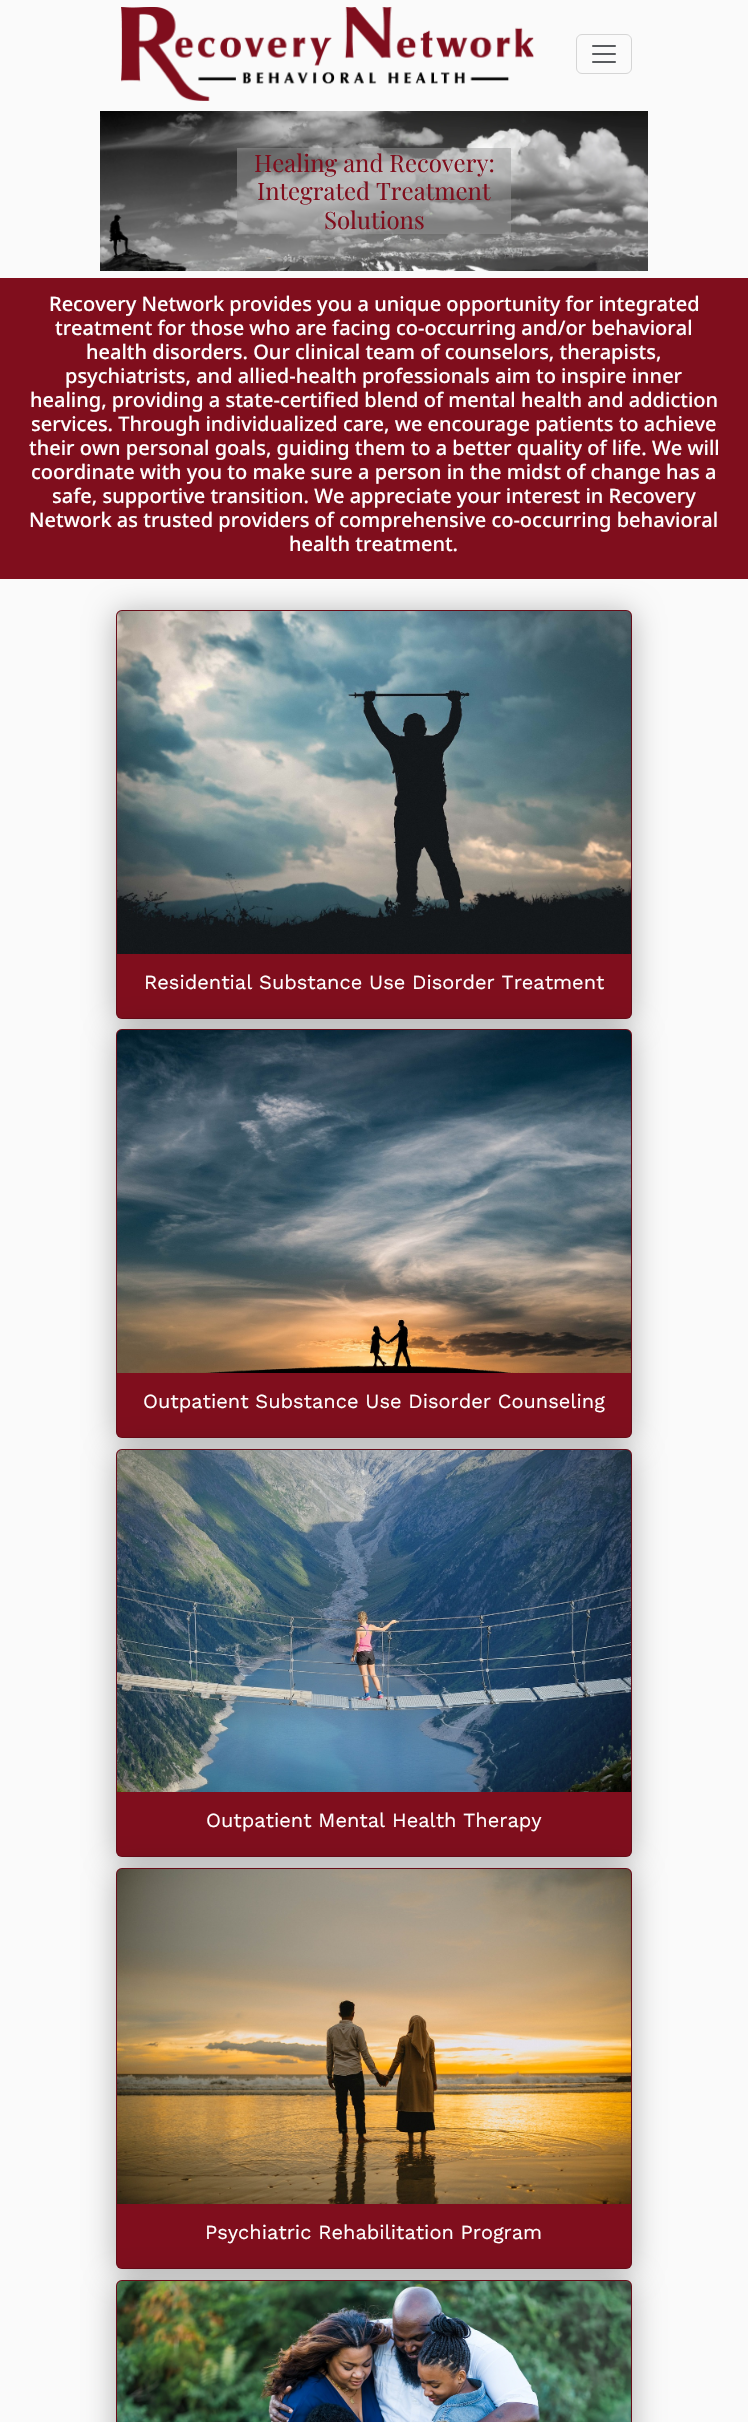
void draw(SkCanvas* canvas) {
    SkPaint paint;
    paint.setAntiAlias(true);
    canvas->clear(0xFFFAFAFA);
    canvas->drawImageRect(SkImages::DeferredFromEncodedData(SkData::MakeFromFileName("img1.png")), SkRect::MakeXYWH(121, 7, 413, 94), SkSamplingOptions());
    paint.setStyle(SkPaint::kStroke_Style);
    paint.setStrokeWidth(1);
    paint.setColor(0xFFD5D5D5);
    canvas->drawRoundRect(SkRect::MakeXYWH(576.5f, 34.5f, 55, 39), 5.5f, 5.5f, paint);
    canvas->drawImageRect(SkImages::DeferredFromEncodedData(SkData::MakeFromFileName("img2.png")), SkRect::MakeXYWH(592, 45, 24, 18), SkSamplingOptions());
    canvas->drawImageRect(SkImages::DeferredFromEncodedData(SkData::MakeFromFileName("img3.png")), SkRect::MakeXYWH(100, 111, 548, 160), SkSamplingOptions());
    paint.setStyle(SkPaint::kFill_Style);
    paint.setColor(0x80979797);
    canvas->drawRect(SkRect::MakeXYWH(237, 148, 274, 86), paint);
    SkFont font1(fontMgr->matchFamilyStyle("Playfair Display", SkFontStyle::Normal()), 24);
    font1.setSubpixel(true);
    paint.setColor(0xFF800E1D);
    canvas->drawString("Healing and Recovery:", 254, 172, font1, paint);
    canvas->drawString("Integrated Treatment", 257, 200, font1, paint);
    canvas->drawString("Solutions", 324, 229, font1, paint);
    canvas->drawRect(SkRect::MakeXYWH(0, 278, 748, 301), paint);
    SkFont font2(fontMgr->matchFamilyStyle("Noto Sans", SkFontStyle(500, SkFontStyle::kNormal_Width, SkFontStyle::kUpright_Slant)), 20);
    font2.setSubpixel(true);
    paint.setColor(0xFFFFFFFF);
    canvas->drawString("Recovery Network provides you a unique opportunity for integrated", 49, 311, font2, paint);
    canvas->drawString("treatment for those who are facing co-occurring and/or behavioral", 55, 335, font2, paint);
    canvas->drawString("health disorders. Our clinical team of counselors, therapists,", 86, 359, font2, paint);
    canvas->drawString("psychiatrists, and allied-health professionals aim to inspire inner", 65, 383, font2, paint);
    canvas->drawString("healing, providing a state-certified blend of mental health and addiction", 30, 407, font2, paint);
    canvas->drawString("services. Through individualized care, we encourage patients to achieve", 31, 431, font2, paint);
    canvas->drawString("their own personal goals, guiding them to a better quality of life. We will", 29, 455, font2, paint);
    canvas->drawString("coordinate with you to make sure a person in the midst of change has a", 31, 479, font2, paint);
    canvas->drawString("safe, supportive transition. We appreciate your interest in Recovery", 52, 503, font2, paint);
    canvas->drawString("Network as trusted providers of comprehensive co-occurring behavioral", 29, 527, font2, paint);
    canvas->drawString("health treatment.", 289, 551, font2, paint);
    paint.setColor(0x4D000000);
    paint.setMaskFilter(SkMaskFilter::MakeBlur(kNormal_SkBlurStyle, 15));
    canvas->drawRoundRect(SkRect::MakeXYWH(116, 613, 516, 409), 6, 6, paint);
    paint.setMaskFilter(nullptr);
    paint.setColor(0xFF800E1D);
    canvas->drawRoundRect(SkRect::MakeXYWH(116, 610, 516, 409), 6, 6, paint);
    paint.setStyle(SkPaint::kStroke_Style);
    paint.setColor(0x2E000000);
    canvas->drawRoundRect(SkRect::MakeXYWH(116.5f, 610.5f, 515, 408), 5.5f, 5.5f, paint);
    canvas->drawImageRect(SkImages::DeferredFromEncodedData(SkData::MakeFromFileName("img4.png")), SkRect::MakeXYWH(117, 611, 514, 343), SkSamplingOptions());
    SkFont font3(fontMgr->matchFamilyStyle("Work Sans", SkFontStyle::Normal()), 20);
    font3.setSubpixel(true);
    paint.setStyle(SkPaint::kFill_Style);
    paint.setColor(0xFFFFFFFF);
    canvas->drawString("Residential Substance Use Disorder Treatment", 144, 989, font3, paint);
    paint.setColor(0x4D000000);
    paint.setMaskFilter(SkMaskFilter::MakeBlur(kNormal_SkBlurStyle, 15));
    canvas->drawRoundRect(SkRect::MakeXYWH(116, 1032, 516, 409), 6, 6, paint);
    paint.setMaskFilter(nullptr);
    paint.setColor(0xFF800E1D);
    canvas->drawRoundRect(SkRect::MakeXYWH(116, 1029, 516, 409), 6, 6, paint);
    paint.setStyle(SkPaint::kStroke_Style);
    paint.setColor(0x2E000000);
    canvas->drawRoundRect(SkRect::MakeXYWH(116.5f, 1029.5f, 515, 408), 5.5f, 5.5f, paint);
    canvas->drawImageRect(SkImages::DeferredFromEncodedData(SkData::MakeFromFileName("img5.png")), SkRect::MakeXYWH(117, 1030, 514, 343), SkSamplingOptions());
    paint.setStyle(SkPaint::kFill_Style);
    paint.setColor(0xFFFFFFFF);
    canvas->drawString("Outpatient Substance Use Disorder Counseling", 143, 1408, font3, paint);
    paint.setColor(0x4D000000);
    paint.setMaskFilter(SkMaskFilter::MakeBlur(kNormal_SkBlurStyle, 15));
    canvas->drawRoundRect(SkRect::MakeXYWH(116, 1452, 516, 408), 6, 6, paint);
    paint.setMaskFilter(nullptr);
    paint.setColor(0xFF800E1D);
    canvas->drawRoundRect(SkRect::MakeXYWH(116, 1449, 516, 408), 6, 6, paint);
    paint.setStyle(SkPaint::kStroke_Style);
    paint.setColor(0x2E000000);
    canvas->drawRoundRect(SkRect::MakeXYWH(116.5f, 1449.5f, 515, 407), 5.5f, 5.5f, paint);
    canvas->drawImageRect(SkImages::DeferredFromEncodedData(SkData::MakeFromFileName("img6.png")), SkRect::MakeXYWH(117, 1450, 514, 342), SkSamplingOptions());
    paint.setStyle(SkPaint::kFill_Style);
    paint.setColor(0xFFFFFFFF);
    canvas->drawString("Outpatient Mental Health Therapy", 206, 1827, font3, paint);
    paint.setColor(0x4D000000);
    paint.setMaskFilter(SkMaskFilter::MakeBlur(kNormal_SkBlurStyle, 15));
    canvas->drawRoundRect(SkRect::MakeXYWH(116, 1871, 516, 401), 6, 6, paint);
    paint.setMaskFilter(nullptr);
    paint.setColor(0xFF800E1D);
    canvas->drawRoundRect(SkRect::MakeXYWH(116, 1868, 516, 401), 6, 6, paint);
    paint.setStyle(SkPaint::kStroke_Style);
    paint.setColor(0x2E000000);
    canvas->drawRoundRect(SkRect::MakeXYWH(116.5f, 1868.5f, 515, 400), 5.5f, 5.5f, paint);
    canvas->drawImageRect(SkImages::DeferredFromEncodedData(SkData::MakeFromFileName("img7.png")), SkRect::MakeXYWH(117, 1869, 514, 335), SkSamplingOptions());
    paint.setStyle(SkPaint::kFill_Style);
    paint.setColor(0xFFFFFFFF);
    canvas->drawString("Psychiatric Rehabilitation Program", 205, 2239, font3, paint);
    paint.setColor(0x4D000000);
    paint.setMaskFilter(SkMaskFilter::MakeBlur(kNormal_SkBlurStyle, 15));
    canvas->drawRoundRect(SkRect::MakeXYWH(116, 2283, 516, 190), 6, 6, paint);
    paint.setMaskFilter(nullptr);
    paint.setColor(0xFF800E1D);
    canvas->drawRoundRect(SkRect::MakeXYWH(116, 2280, 516, 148), 6, 6, paint);
    paint.setStyle(SkPaint::kStroke_Style);
    paint.setColor(0x2E000000);
    canvas->drawRoundRect(SkRect::MakeXYWH(116.5f, 2280.5f, 515, 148), 5.5f, 5.5f, paint);
    canvas->drawImageRect(SkImages::DeferredFromEncodedData(SkData::MakeFromFileName("img8.png")), SkRect::MakeXYWH(117, 2281, 514, 141), SkSamplingOptions());
}
